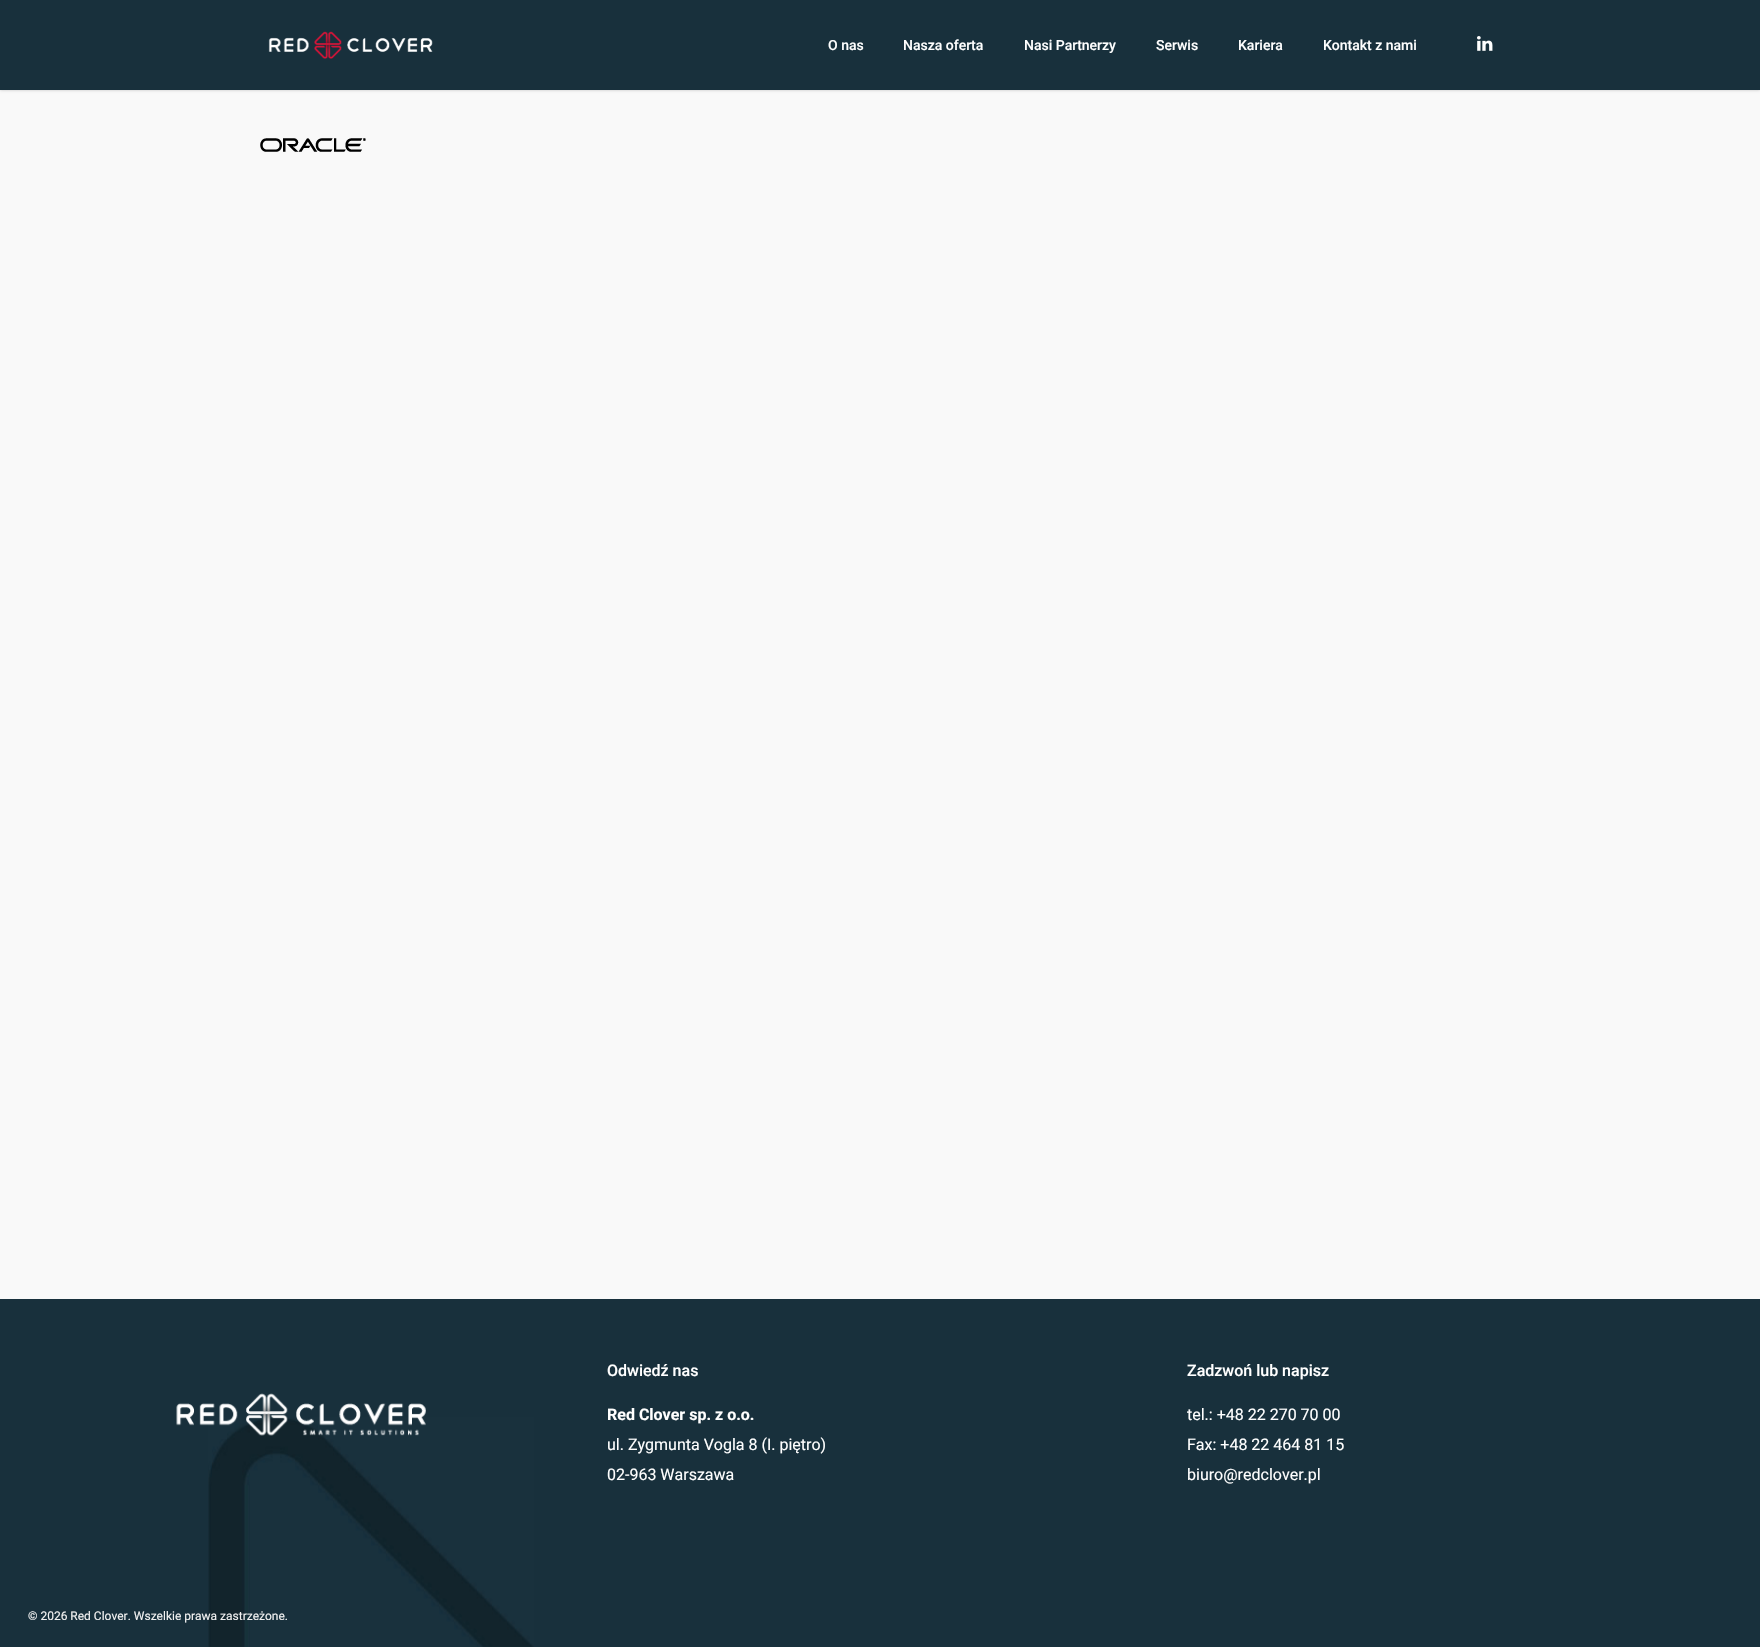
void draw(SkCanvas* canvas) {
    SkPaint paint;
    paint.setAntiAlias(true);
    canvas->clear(0xFFF9F9F9);
    paint.setColor(0x38000000);
    paint.setMaskFilter(SkMaskFilter::MakeBlur(kNormal_SkBlurStyle, 1.5f));
    canvas->drawRect(SkRect::MakeXYWH(0, 0, 1760, 90), paint);
    paint.setMaskFilter(nullptr);
    paint.setColor(0xFF18303C);
    canvas->drawRect(SkRect::MakeXYWH(0, 0, 1760, 90), paint);
    canvas->drawImageRect(SkImages::DeferredFromEncodedData(SkData::MakeFromFileName("img1.png")), SkRect::MakeXYWH(268, 31, 165, 28), SkSamplingOptions());
    SkFont font1(fontMgr->matchFamilyStyle("Roboto", SkFontStyle(500, SkFontStyle::kNormal_Width, SkFontStyle::kUpright_Slant)), 14);
    font1.setSubpixel(true);
    paint.setColor(0xFFFFFFFF);
    canvas->drawString("O nas", 828, 50, font1, paint);
    canvas->drawString("Nasza oferta", 903, 50, font1, paint);
    canvas->drawString("Nasi Partnerzy", 1024, 50, font1, paint);
    canvas->drawString("Serwis", 1156, 50, font1, paint);
    canvas->drawString("Kariera", 1238, 50, font1, paint);
    canvas->drawString("Kontakt z nami", 1323, 50, font1, paint);
    canvas->drawImageRect(SkImages::DeferredFromEncodedData(SkData::MakeFromFileName("img2.png")), SkRect::MakeXYWH(1477, 36, 16, 15), SkSamplingOptions());
    canvas->drawImageRect(SkImages::DeferredFromEncodedData(SkData::MakeFromFileName("img3.png")), SkRect::MakeXYWH(260, 138, 106, 14), SkSamplingOptions());
    paint.setColor(0xFF18303C);
    canvas->drawRect(SkRect::MakeXYWH(0, 1299, 1760, 348), paint);
    canvas->drawImageRect(SkImages::DeferredFromEncodedData(SkData::MakeFromFileName("img4.png")), SkRect::MakeXYWH(208, 1417, 326, 230), SkSamplingOptions());
    canvas->drawImageRect(SkImages::DeferredFromEncodedData(SkData::MakeFromFileName("img5.png")), SkRect::MakeXYWH(176, 1393, 250, 43), SkSamplingOptions());
    SkFont font2(fontMgr->matchFamilyStyle("Roboto", SkFontStyle(500, SkFontStyle::kNormal_Width, SkFontStyle::kUpright_Slant)), 16);
    font2.setSubpixel(true);
    paint.setColor(0xFFFFFFFF);
    canvas->drawString("Odwiedź nas", 607, 1376, font2, paint);
    SkFont font3(fontMgr->matchFamilyStyle("Roboto", SkFontStyle::Bold()), 16);
    font3.setSubpixel(true);
    canvas->drawString("Red Clover sp. z o.o.", 607, 1420, font3, paint);
    SkFont font4(fontMgr->matchFamilyStyle("Roboto", SkFontStyle::Normal()), 16);
    font4.setSubpixel(true);
    canvas->drawString("ul. Zygmunta Vogla 8 (I. piętro)", 607, 1450, font4, paint);
    canvas->drawString("02-963 Warszawa", 607, 1480, font4, paint);
    canvas->drawString("Zadzwoń lub napisz", 1187, 1376, font2, paint);
    canvas->drawString("tel.: +48 22 270 70 00", 1187, 1420, font4, paint);
    canvas->drawString("Fax: +48 22 464 81 15", 1187, 1450, font4, paint);
    canvas->drawString("biuro@redclover.pl", 1187, 1480, font4, paint);
    SkFont font5(fontMgr->matchFamilyStyle("Roboto", SkFontStyle::Normal()), 12);
    font5.setSubpixel(true);
    paint.setColor(0xFFF2F2F2);
    canvas->drawString("© 2026 Red Clover. Wszelkie prawa zastrzeżone.", 28, 1620, font5, paint);
}
